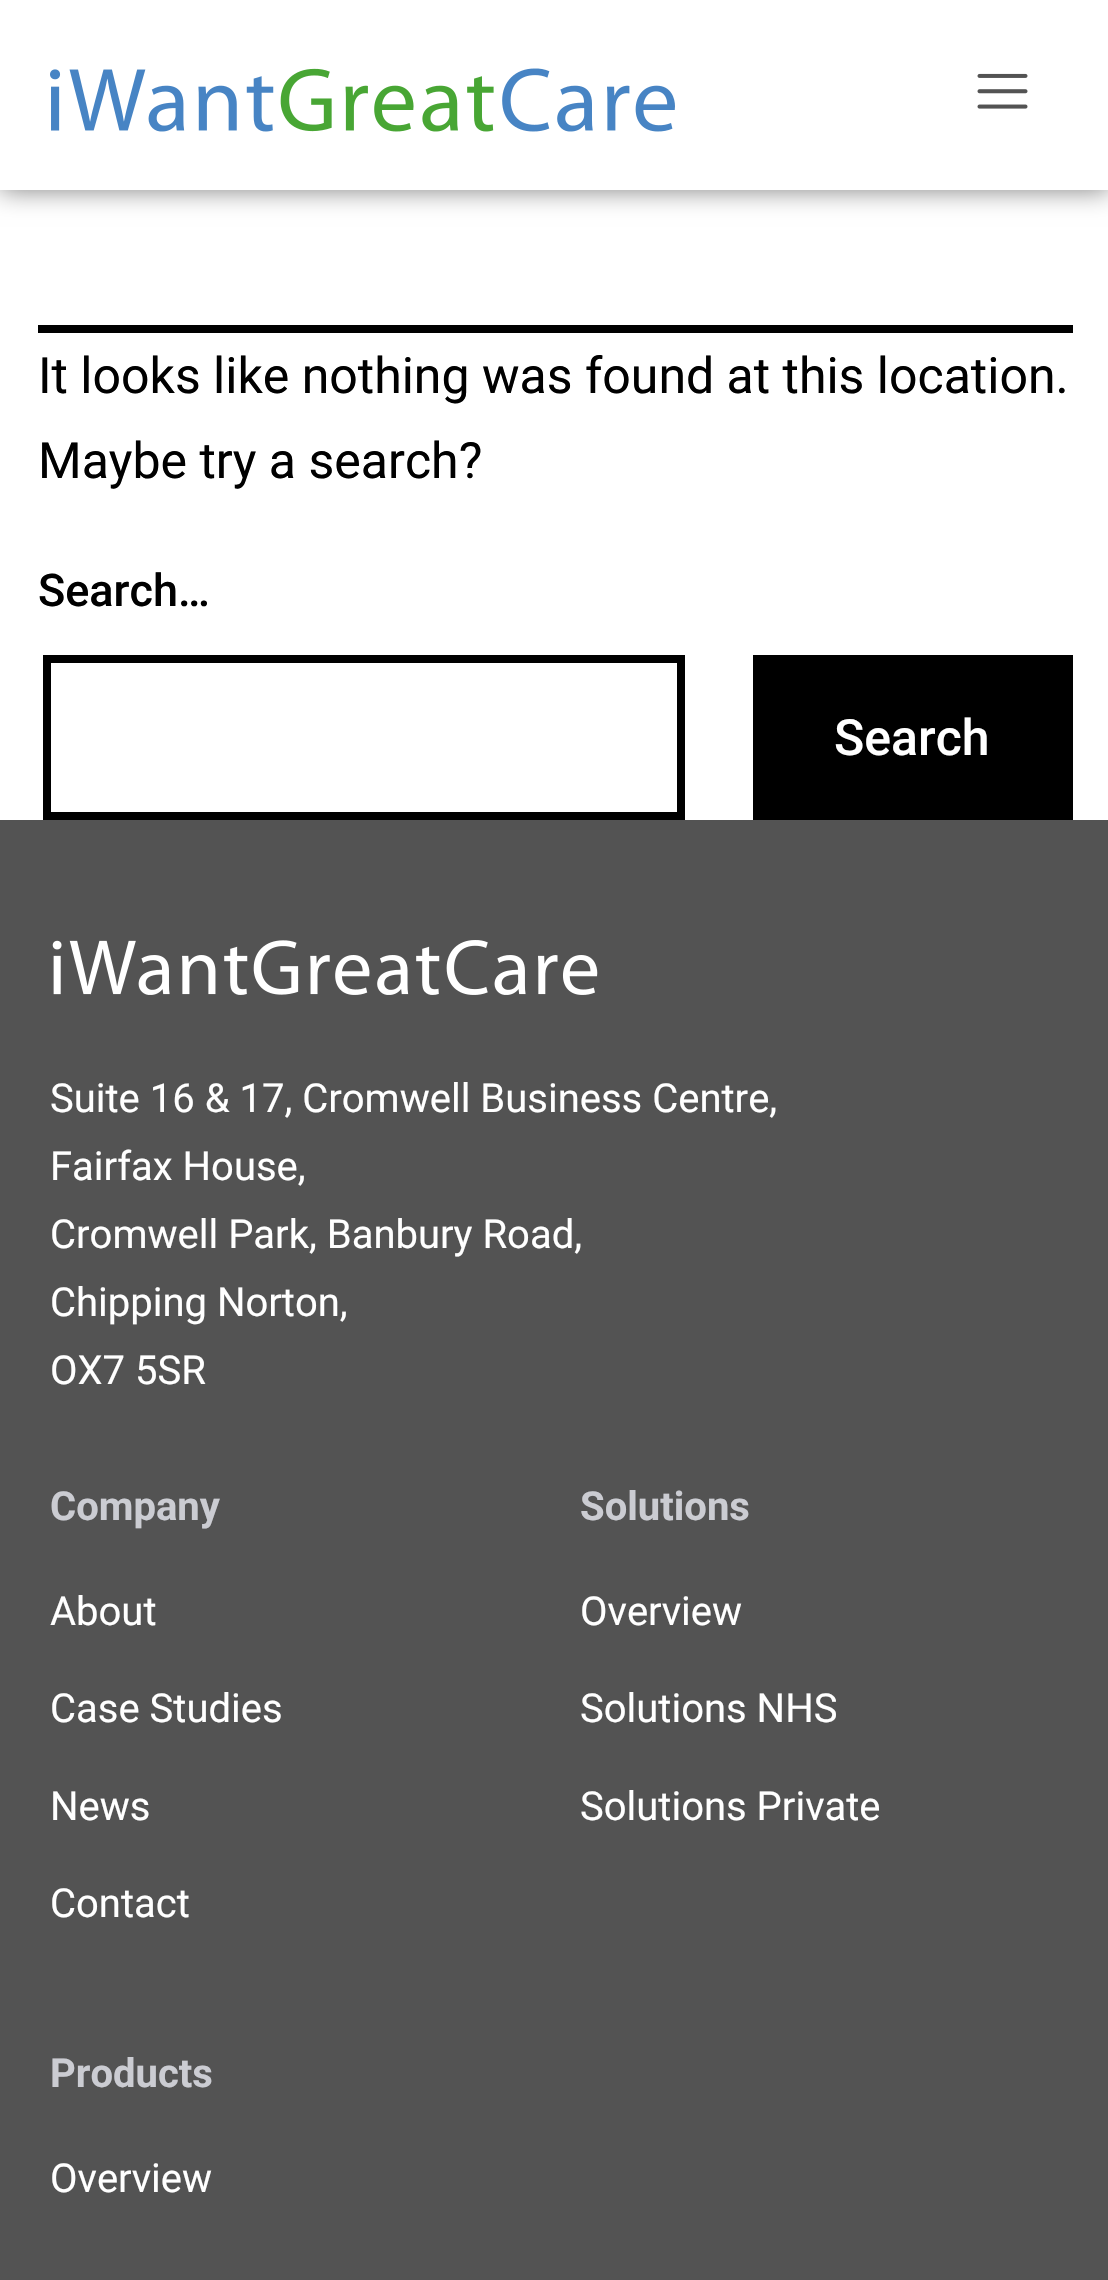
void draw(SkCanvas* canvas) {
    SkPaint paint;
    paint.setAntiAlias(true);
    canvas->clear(0xFFFFFFFF);
    paint.setColor(0x80000000);
    paint.setMaskFilter(SkMaskFilter::MakeBlur(kNormal_SkBlurStyle, 12.5f));
    canvas->drawRect(SkRect::MakeXYWH(0, 0, 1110, 190), paint);
    paint.setMaskFilter(nullptr);
    paint.setColor(0xFFFFFFFF);
    canvas->drawRect(SkRect::MakeXYWH(0, 0, 1108, 190), paint);
    canvas->drawImageRect(SkImages::DeferredFromEncodedData(SkData::MakeFromFileName("img1.png")), SkRect::MakeXYWH(50, 68, 625, 64), SkSamplingOptions());
    canvas->drawImageRect(SkImages::DeferredFromEncodedData(SkData::MakeFromFileName("img2.png")), SkRect::MakeXYWH(977, 73, 51, 36), SkSamplingOptions());
    paint.setColor(0xFF000000);
    canvas->drawRect(SkRect::MakeXYWH(38, 325, 1035, 8), paint);
    SkFont font1(fontMgr->matchFamilyStyle("Roboto", SkFontStyle::Normal()), 50);
    font1.setSubpixel(true);
    canvas->drawString("It looks like nothing was found at this location.", 38, 393, font1, paint);
    canvas->drawString("Maybe try a search?", 38, 478, font1, paint);
    SkFont font2(fontMgr->matchFamilyStyle("Roboto", SkFontStyle(500, SkFontStyle::kNormal_Width, SkFontStyle::kUpright_Slant)), 45);
    font2.setSubpixel(true);
    canvas->drawString("Search…", 38, 606, font2, paint);
    paint.setStyle(SkPaint::kStroke_Style);
    paint.setStrokeWidth(8);
    canvas->drawRect(SkRect::MakeXYWH(47, 659, 634, 157), paint);
    paint.setStyle(SkPaint::kFill_Style);
    canvas->drawRect(SkRect::MakeXYWH(753, 655, 320, 165), paint);
    SkFont font3(fontMgr->matchFamilyStyle("Roboto", SkFontStyle(500, SkFontStyle::kNormal_Width, SkFontStyle::kUpright_Slant)), 50);
    font3.setSubpixel(true);
    paint.setColor(0xFFFFFFFF);
    canvas->drawString("Search", 834, 755, font3, paint);
    paint.setColor(0xFF535353);
    canvas->drawRect(SkRect::MakeXYWH(0, 820, 1108, 1460), paint);
    canvas->drawImageRect(SkImages::DeferredFromEncodedData(SkData::MakeFromFileName("img3.png")), SkRect::MakeXYWH(52, 940, 546, 55), SkSamplingOptions());
    SkFont font4(fontMgr->matchFamilyStyle("Roboto", SkFontStyle::Normal()), 40);
    font4.setSubpixel(true);
    paint.setColor(0xFFFFFFFF);
    canvas->drawString("Suite 16 & 17, Cromwell Business Centre,", 50, 1112, font4, paint);
    canvas->drawString("Fairfax House,", 50, 1180, font4, paint);
    canvas->drawString("Cromwell Park, Banbury Road,", 50, 1248, font4, paint);
    canvas->drawString("Chipping Norton,", 50, 1316, font4, paint);
    canvas->drawString("OX7 5SR", 50, 1384, font4, paint);
    SkFont font5(fontMgr->matchFamilyStyle("Roboto", SkFontStyle::Bold()), 40);
    font5.setSubpixel(true);
    paint.setColor(0xFFCBCCD2);
    canvas->drawString("Company", 50, 1520, font5, paint);
    paint.setColor(0xFFFFFFFF);
    canvas->drawString("About", 50, 1625, font4, paint);
    canvas->drawString("Case Studies", 50, 1722, font4, paint);
    canvas->drawString("News", 50, 1820, font4, paint);
    canvas->drawString("Contact", 50, 1917, font4, paint);
    paint.setColor(0xFFCBCCD2);
    canvas->drawString("Solutions", 580, 1520, font5, paint);
    paint.setColor(0xFFFFFFFF);
    canvas->drawString("Overview", 580, 1625, font4, paint);
    canvas->drawString("Solutions NHS", 580, 1722, font4, paint);
    canvas->drawString("Solutions Private", 580, 1820, font4, paint);
    paint.setColor(0xFFCBCCD2);
    canvas->drawString("Products", 50, 2087, font5, paint);
    paint.setColor(0xFFFFFFFF);
    canvas->drawString("Overview", 50, 2192, font4, paint);
}
